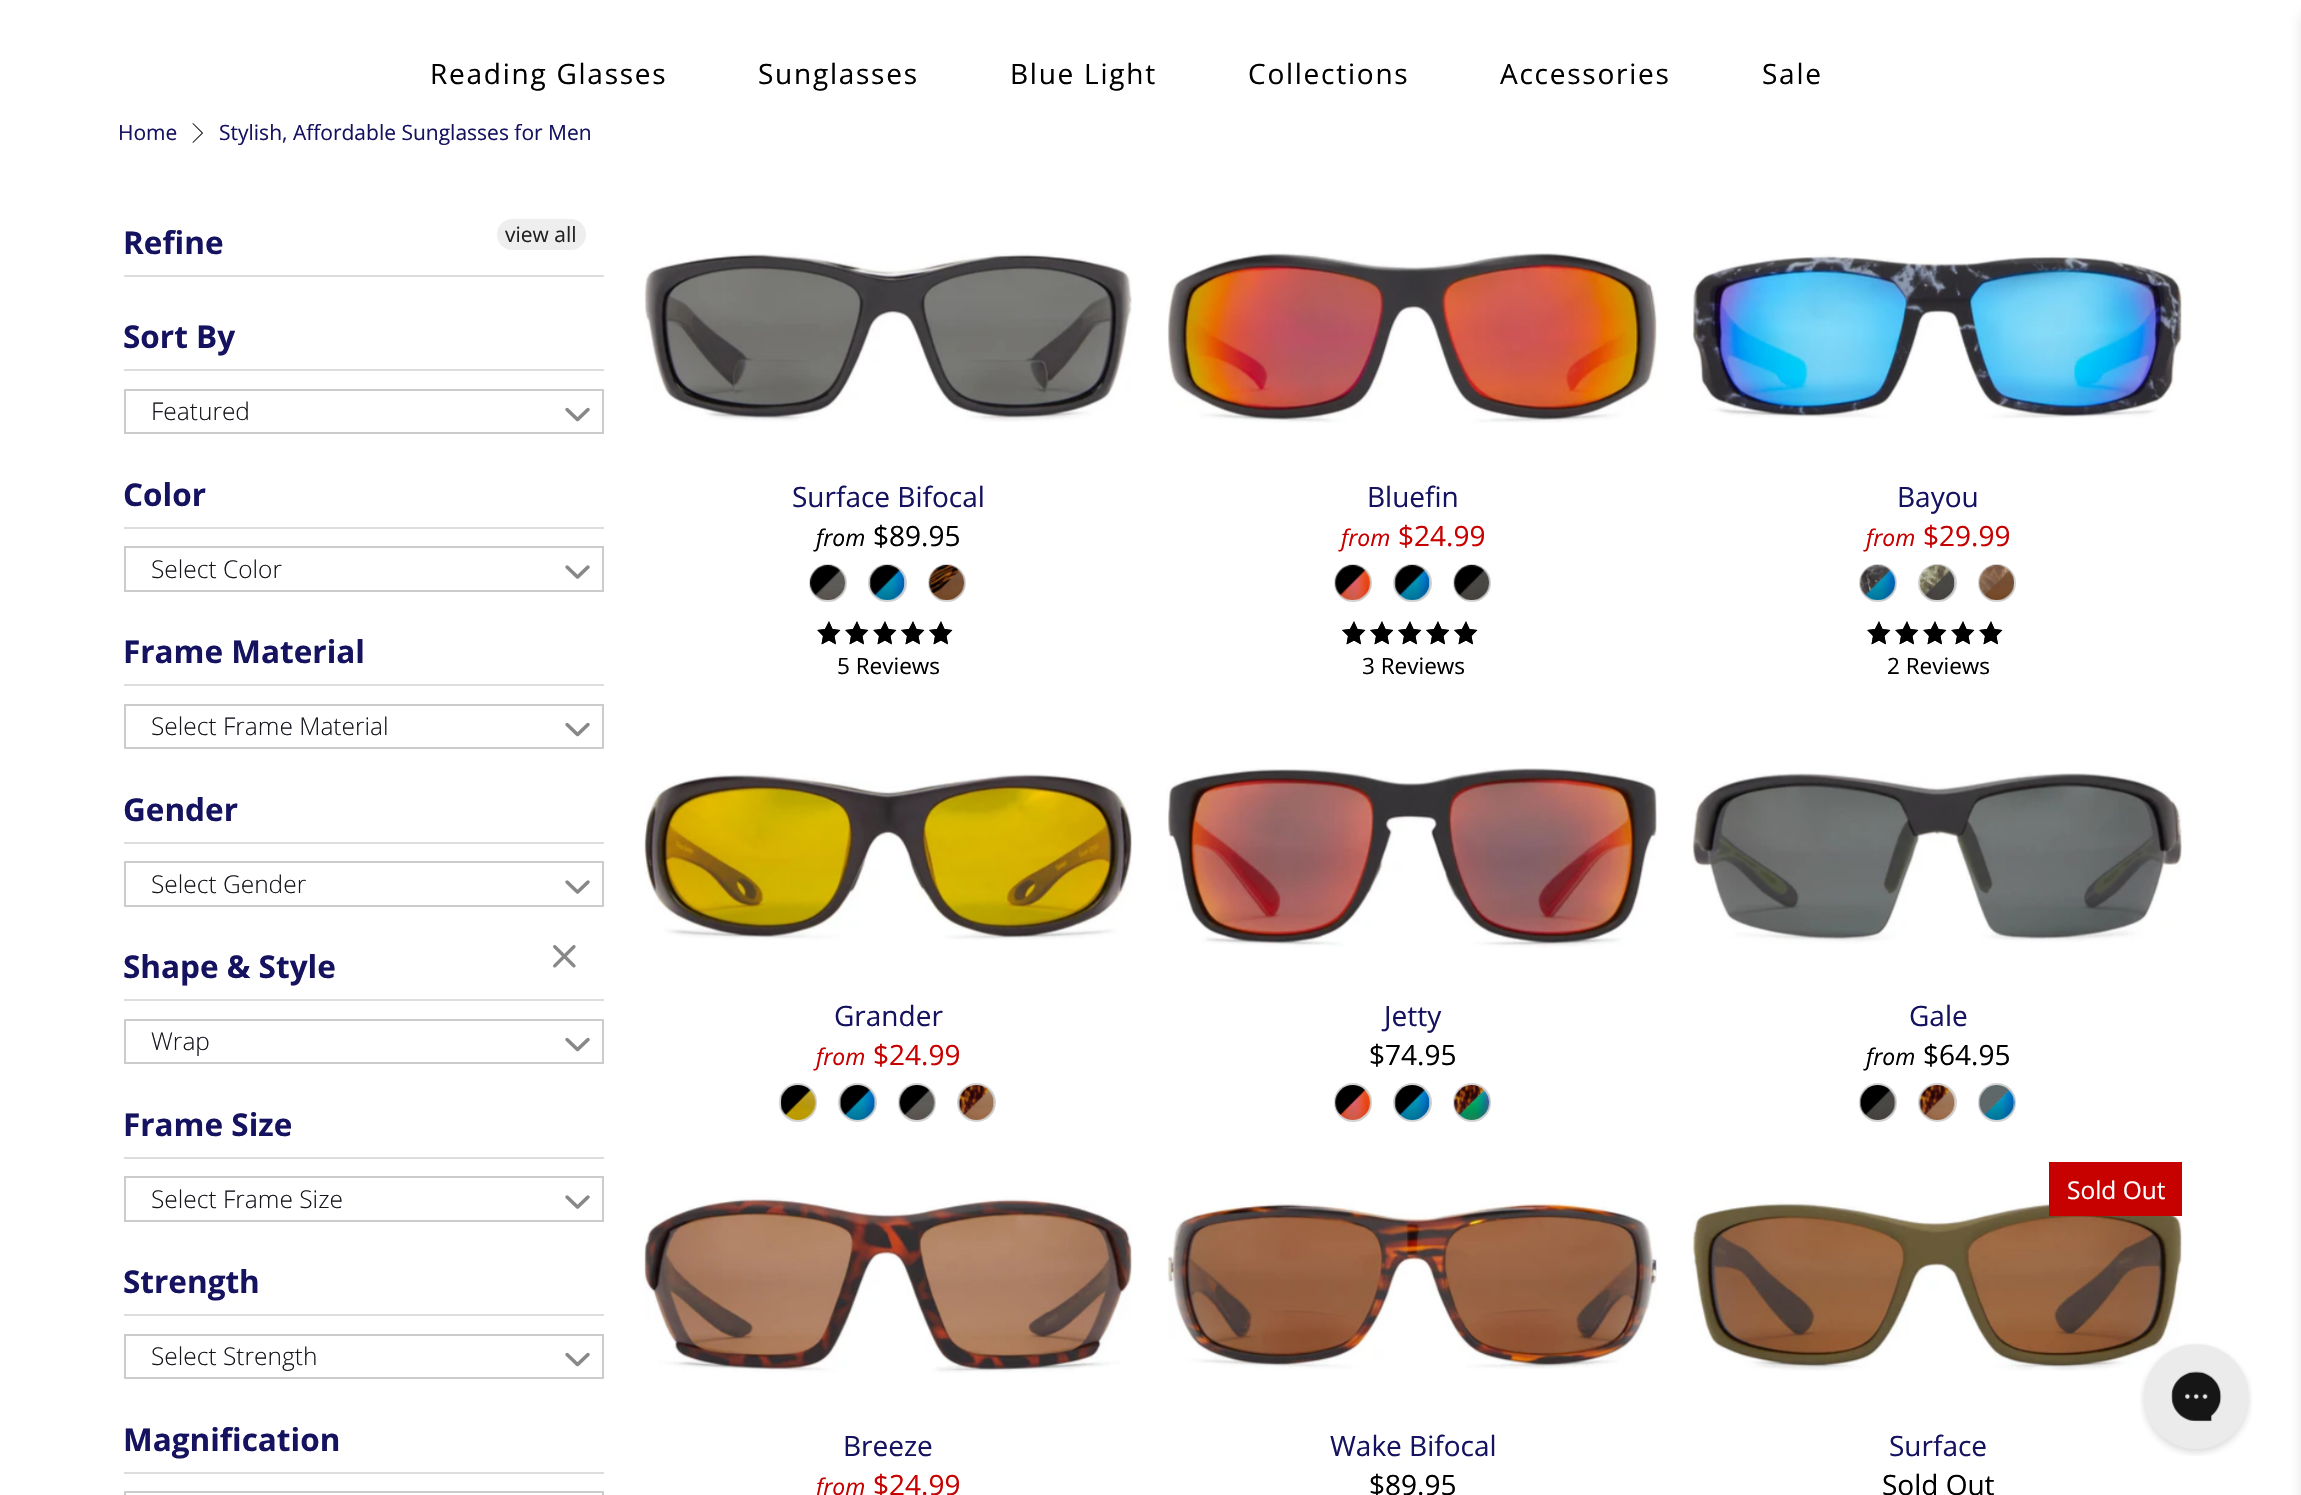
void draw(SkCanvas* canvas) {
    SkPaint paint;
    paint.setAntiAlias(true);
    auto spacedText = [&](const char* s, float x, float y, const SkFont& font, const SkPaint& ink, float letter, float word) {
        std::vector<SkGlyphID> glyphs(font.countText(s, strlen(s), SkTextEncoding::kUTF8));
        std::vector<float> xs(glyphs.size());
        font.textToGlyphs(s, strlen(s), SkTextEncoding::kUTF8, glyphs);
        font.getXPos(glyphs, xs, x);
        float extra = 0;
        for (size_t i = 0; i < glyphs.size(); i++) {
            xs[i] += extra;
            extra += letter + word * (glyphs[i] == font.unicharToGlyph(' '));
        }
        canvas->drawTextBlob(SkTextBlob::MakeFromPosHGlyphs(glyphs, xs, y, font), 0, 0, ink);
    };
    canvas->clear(0xFFFFFFFF);
    SkFont font1(fontMgr->matchFamilyStyle("Open Sans", SkFontStyle::Normal()), 28);
    font1.setSubpixel(true);
    paint.setColor(0xFF000000);
    spacedText("Reading Glasses", 430, 84, font1, paint, 1.75f, 0);
    spacedText("Sunglasses", 758, 84, font1, paint, 1.75f, 0);
    spacedText("Blue Light", 1010, 84, font1, paint, 1.75f, 0);
    spacedText("Collections", 1248, 84, font1, paint, 1.75f, 0);
    spacedText("Accessories", 1500, 84, font1, paint, 1.75f, 0);
    spacedText("Sale", 1762, 84, font1, paint, 1.75f, 0);
    paint.setColor(0x1A0A0A0A);
    paint.setMaskFilter(SkMaskFilter::MakeBlur(kNormal_SkBlurStyle, 7));
    canvas->drawRect(SkRect::MakeXYWH(2301, 14, 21, 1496), paint);
    paint.setMaskFilter(nullptr);
    SkFont font2(fontMgr->matchFamilyStyle("Open Sans", SkFontStyle::Normal()), 21);
    font2.setSubpixel(true);
    paint.setColor(0xFF15125F);
    canvas->drawString("Home", 118, 140, font2, paint);
    canvas->drawImageRect(SkImages::DeferredFromEncodedData(SkData::MakeFromFileName("img1.png")), SkRect::MakeXYWH(192, 123, 11, 20), SkSamplingOptions());
    canvas->drawString("Stylish, Affordable Sunglasses for Men", 219, 140, font2, paint);
    paint.setColor(0xFFDDDDDD);
    canvas->drawRect(SkRect::MakeXYWH(124, 275, 480, 2), paint);
    SkFont font3(fontMgr->matchFamilyStyle("Open Sans", SkFontStyle::Bold()), 31.5f);
    font3.setSubpixel(true);
    paint.setColor(0xFF15125F);
    canvas->drawString("Refine", 123, 254, font3, paint);
    paint.setColor(0xFFEEEEEE);
    canvas->drawRoundRect(SkRect::MakeXYWH(497, 219, 89, 31), 15.5f, 15.5f, paint);
    paint.setColor(0xFF222222);
    canvas->drawString("view all", 505, 242, font2, paint);
    paint.setColor(0xFFDDDDDD);
    canvas->drawRect(SkRect::MakeXYWH(124, 369, 480, 2), paint);
    paint.setColor(0xFF15125F);
    canvas->drawString("Sort By", 123, 348, font3, paint);
    paint.setStyle(SkPaint::kStroke_Style);
    paint.setStrokeWidth(2);
    paint.setColor(0xFFCCCCCC);
    canvas->drawRect(SkRect::MakeXYWH(125, 390, 478, 43), paint);
    SkFont font4(fontMgr->matchFamilyStyle("Open Sans", SkFontStyle(300, SkFontStyle::kNormal_Width, SkFontStyle::kUpright_Slant)), 24.5f);
    font4.setSubpixel(true);
    paint.setStyle(SkPaint::kFill_Style);
    paint.setColor(0xFF16161D);
    canvas->drawString("Featured", 151, 420, font4, paint);
    canvas->drawImageRect(SkImages::DeferredFromEncodedData(SkData::MakeFromFileName("img2.png")), SkRect::MakeXYWH(565, 407, 25, 15), SkSamplingOptions());
    paint.setColor(0xFFDDDDDD);
    canvas->drawRect(SkRect::MakeXYWH(124, 527, 480, 2), paint);
    paint.setColor(0xFF15125F);
    canvas->drawString("Color", 123, 506, font3, paint);
    paint.setStyle(SkPaint::kStroke_Style);
    paint.setColor(0xFFCCCCCC);
    canvas->drawRect(SkRect::MakeXYWH(125, 547, 478, 44), paint);
    paint.setStyle(SkPaint::kFill_Style);
    paint.setColor(0xFF16161D);
    canvas->drawString("Select Color", 151, 578, font4, paint);
    canvas->drawImageRect(SkImages::DeferredFromEncodedData(SkData::MakeFromFileName("img3.png")), SkRect::MakeXYWH(565, 565, 25, 14), SkSamplingOptions());
    paint.setColor(0xFFDDDDDD);
    canvas->drawRect(SkRect::MakeXYWH(124, 684, 480, 2), paint);
    paint.setColor(0xFF15125F);
    canvas->drawString("Frame Material", 123, 663, font3, paint);
    paint.setStyle(SkPaint::kStroke_Style);
    paint.setColor(0xFFCCCCCC);
    canvas->drawRect(SkRect::MakeXYWH(125, 705, 478, 43), paint);
    paint.setStyle(SkPaint::kFill_Style);
    paint.setColor(0xFF16161D);
    canvas->drawString("Select Frame Material", 151, 735, font4, paint);
    canvas->drawImageRect(SkImages::DeferredFromEncodedData(SkData::MakeFromFileName("img2.png")), SkRect::MakeXYWH(565, 722, 25, 15), SkSamplingOptions());
    paint.setColor(0xFFDDDDDD);
    canvas->drawRect(SkRect::MakeXYWH(124, 842, 480, 2), paint);
    paint.setColor(0xFF15125F);
    canvas->drawString("Gender", 123, 821, font3, paint);
    paint.setStyle(SkPaint::kStroke_Style);
    paint.setColor(0xFFCCCCCC);
    canvas->drawRect(SkRect::MakeXYWH(125, 862, 478, 44), paint);
    paint.setStyle(SkPaint::kFill_Style);
    paint.setColor(0xFF16161D);
    canvas->drawString("Select Gender", 151, 893, font4, paint);
    canvas->drawImageRect(SkImages::DeferredFromEncodedData(SkData::MakeFromFileName("img3.png")), SkRect::MakeXYWH(565, 880, 25, 14), SkSamplingOptions());
    paint.setColor(0xFFDDDDDD);
    canvas->drawRect(SkRect::MakeXYWH(124, 999, 480, 2), paint);
    paint.setColor(0xFF15125F);
    canvas->drawString("Shape & Style", 123, 978, font3, paint);
    canvas->drawImageRect(SkImages::DeferredFromEncodedData(SkData::MakeFromFileName("img4.png")), SkRect::MakeXYWH(553, 945, 23, 23), SkSamplingOptions());
    paint.setStyle(SkPaint::kStroke_Style);
    paint.setColor(0xFFCCCCCC);
    canvas->drawRect(SkRect::MakeXYWH(125, 1020, 478, 43), paint);
    paint.setStyle(SkPaint::kFill_Style);
    paint.setColor(0xFF16161D);
    canvas->drawString("Wrap", 151, 1050, font4, paint);
    canvas->drawImageRect(SkImages::DeferredFromEncodedData(SkData::MakeFromFileName("img2.png")), SkRect::MakeXYWH(565, 1037, 25, 15), SkSamplingOptions());
    paint.setColor(0xFFDDDDDD);
    canvas->drawRect(SkRect::MakeXYWH(124, 1157, 480, 2), paint);
    paint.setColor(0xFF15125F);
    canvas->drawString("Frame Size", 123, 1136, font3, paint);
    paint.setStyle(SkPaint::kStroke_Style);
    paint.setColor(0xFFCCCCCC);
    canvas->drawRect(SkRect::MakeXYWH(125, 1177, 478, 44), paint);
    paint.setStyle(SkPaint::kFill_Style);
    paint.setColor(0xFF16161D);
    canvas->drawString("Select Frame Size", 151, 1208, font4, paint);
    canvas->drawImageRect(SkImages::DeferredFromEncodedData(SkData::MakeFromFileName("img3.png")), SkRect::MakeXYWH(565, 1195, 25, 14), SkSamplingOptions());
    paint.setColor(0xFFDDDDDD);
    canvas->drawRect(SkRect::MakeXYWH(124, 1314, 480, 2), paint);
    paint.setColor(0xFF15125F);
    canvas->drawString("Strength", 123, 1293, font3, paint);
    paint.setStyle(SkPaint::kStroke_Style);
    paint.setColor(0xFFCCCCCC);
    canvas->drawRect(SkRect::MakeXYWH(125, 1335, 478, 43), paint);
    paint.setStyle(SkPaint::kFill_Style);
    paint.setColor(0xFF16161D);
    canvas->drawString("Select Strength", 151, 1365, font4, paint);
    canvas->drawImageRect(SkImages::DeferredFromEncodedData(SkData::MakeFromFileName("img2.png")), SkRect::MakeXYWH(565, 1352, 25, 15), SkSamplingOptions());
    paint.setColor(0xFFDDDDDD);
    canvas->drawRect(SkRect::MakeXYWH(124, 1472, 480, 2), paint);
    paint.setColor(0xFF15125F);
    canvas->drawString("Magnification", 123, 1451, font3, paint);
    paint.setStyle(SkPaint::kStroke_Style);
    paint.setColor(0xFFCCCCCC);
    canvas->drawRect(SkRect::MakeXYWH(125, 1492, 478, 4), paint);
    canvas->drawImageRect(SkImages::DeferredFromEncodedData(SkData::MakeFromFileName("img5.png")), SkRect::MakeXYWH(644, 253, 488, 169), SkSamplingOptions());
    paint.setStyle(SkPaint::kFill_Style);
    paint.setColor(0xFF15125F);
    canvas->drawString("Surface Bifocal", 792, 507, font1, paint);
    SkFont font5(fontMgr->matchFamilyStyle("Open Sans", SkFontStyle::Italic()), 23);
    font5.setSubpixel(true);
    paint.setColor(0xFF000000);
    canvas->drawString("from", 816, 546, font5, paint);
    canvas->drawString("$89.95", 873, 546, font1, paint);
    paint.setStyle(SkPaint::kStroke_Style);
    paint.setColor(0xFFD3D3D3);
    canvas->drawCircle(828, 583, 18, paint);
    canvas->drawImageRect(SkImages::DeferredFromEncodedData(SkData::MakeFromFileName("img6.png")), SkRect::MakeXYWH(810, 565, 36, 35), SkSamplingOptions());
    canvas->drawRoundRect(SkRect::MakeXYWH(869, 565, 37, 36), 18, 18, paint);
    canvas->drawImageRect(SkImages::DeferredFromEncodedData(SkData::MakeFromFileName("img7.png")), SkRect::MakeXYWH(869, 565, 37, 35), SkSamplingOptions());
    canvas->drawCircle(947, 583, 18, paint);
    canvas->drawImageRect(SkImages::DeferredFromEncodedData(SkData::MakeFromFileName("img8.png")), SkRect::MakeXYWH(929, 565, 36, 35), SkSamplingOptions());
    canvas->save();
    canvas->clipRect(SkRect::MakeXYWH(817, 621, 23, 23));
    paint.setStyle(SkPaint::kFill_Style);
    paint.setColor(0xFF000000);
    canvas->drawPath(SkPathBuilder().moveTo(829, 621).lineTo(825, 629).lineTo(817, 630).lineTo(823, 636).lineTo(821.5f, 644.5f).lineTo(829, 640.5f).lineTo(836, 644.5f).lineTo(834.5f, 636).lineTo(840.5f, 630).lineTo(832.5f, 629).close().detach(), paint);
    canvas->restore();
    canvas->save();
    canvas->clipPath(SkPathBuilder().moveTo(829, 621.5f).lineTo(832.5f, 629).lineTo(840.5f, 630).lineTo(834.5f, 636).lineTo(836, 644.5f).lineTo(829, 640.5f).lineTo(821.5f, 644.5f).lineTo(823, 636).lineTo(817.5f, 630).lineTo(825, 629).close().detach(), true);
    paint.setStyle(SkPaint::kStroke_Style);
    paint.setStrokeWidth(3.3f);
    paint.setStrokeCap(SkPaint::kRound_Cap);
    paint.setStrokeJoin(SkPaint::kRound_Join);
    canvas->drawPath(SkPathBuilder().moveTo(829, 621.5f).lineTo(832.5f, 629).lineTo(840.5f, 630).lineTo(834.5f, 636).lineTo(836, 644.5f).lineTo(829, 640.5f).lineTo(821.5f, 644.5f).lineTo(823, 636).lineTo(817.5f, 630).lineTo(825, 629).close().detach(), paint);
    canvas->restore();
    canvas->save();
    canvas->clipRect(SkRect::MakeXYWH(845, 621, 23, 23));
    paint.setStyle(SkPaint::kFill_Style);
    canvas->drawPath(SkPathBuilder().moveTo(857, 621).lineTo(853, 629).lineTo(845, 630).lineTo(851, 636).lineTo(849.5f, 644.5f).lineTo(857, 640.5f).lineTo(864, 644.5f).lineTo(862.5f, 636).lineTo(868.5f, 630).lineTo(860.5f, 629).close().detach(), paint);
    canvas->restore();
    canvas->save();
    canvas->clipPath(SkPathBuilder().moveTo(857, 621.5f).lineTo(860.5f, 629).lineTo(868.5f, 630).lineTo(862.5f, 636).lineTo(864, 644.5f).lineTo(857, 640.5f).lineTo(849.5f, 644.5f).lineTo(851, 636).lineTo(845.5f, 630).lineTo(853, 629).close().detach(), true);
    paint.setStyle(SkPaint::kStroke_Style);
    canvas->drawPath(SkPathBuilder().moveTo(857, 621.5f).lineTo(860.5f, 629).lineTo(868.5f, 630).lineTo(862.5f, 636).lineTo(864, 644.5f).lineTo(857, 640.5f).lineTo(849.5f, 644.5f).lineTo(851, 636).lineTo(845.5f, 630).lineTo(853, 629).close().detach(), paint);
    canvas->restore();
    canvas->save();
    canvas->clipRect(SkRect::MakeXYWH(873, 621, 23, 23));
    paint.setStyle(SkPaint::kFill_Style);
    canvas->drawPath(SkPathBuilder().moveTo(885, 621).lineTo(881, 629).lineTo(873, 630).lineTo(879, 636).lineTo(877.5f, 644.5f).lineTo(885, 640.5f).lineTo(892, 644.5f).lineTo(890.5f, 636).lineTo(896.5f, 630).lineTo(888.5f, 629).close().detach(), paint);
    canvas->restore();
    canvas->save();
    canvas->clipPath(SkPathBuilder().moveTo(885, 621.5f).lineTo(888.5f, 629).lineTo(896.5f, 630).lineTo(890.5f, 636).lineTo(892, 644.5f).lineTo(885, 640.5f).lineTo(877.5f, 644.5f).lineTo(879, 636).lineTo(873.5f, 630).lineTo(881, 629).close().detach(), true);
    paint.setStyle(SkPaint::kStroke_Style);
    canvas->drawPath(SkPathBuilder().moveTo(885, 621.5f).lineTo(888.5f, 629).lineTo(896.5f, 630).lineTo(890.5f, 636).lineTo(892, 644.5f).lineTo(885, 640.5f).lineTo(877.5f, 644.5f).lineTo(879, 636).lineTo(873.5f, 630).lineTo(881, 629).close().detach(), paint);
    canvas->restore();
    canvas->save();
    canvas->clipRect(SkRect::MakeXYWH(901, 621, 23, 23));
    paint.setStyle(SkPaint::kFill_Style);
    canvas->drawPath(SkPathBuilder().moveTo(913, 621).lineTo(909, 629).lineTo(901, 630).lineTo(907, 636).lineTo(905.5f, 644.5f).lineTo(913, 640.5f).lineTo(920, 644.5f).lineTo(918.5f, 636).lineTo(924.5f, 630).lineTo(916.5f, 629).close().detach(), paint);
    canvas->restore();
    canvas->save();
    canvas->clipPath(SkPathBuilder().moveTo(913, 621.5f).lineTo(916.5f, 629).lineTo(924.5f, 630).lineTo(918.5f, 636).lineTo(920, 644.5f).lineTo(913, 640.5f).lineTo(905.5f, 644.5f).lineTo(907, 636).lineTo(901, 630).lineTo(909, 629).close().detach(), true);
    paint.setStyle(SkPaint::kStroke_Style);
    canvas->drawPath(SkPathBuilder().moveTo(913, 621.5f).lineTo(916.5f, 629).lineTo(924.5f, 630).lineTo(918.5f, 636).lineTo(920, 644.5f).lineTo(913, 640.5f).lineTo(905.5f, 644.5f).lineTo(907, 636).lineTo(901, 630).lineTo(909, 629).close().detach(), paint);
    canvas->restore();
    canvas->save();
    canvas->clipRect(SkRect::MakeXYWH(929, 621, 23, 23));
    paint.setStyle(SkPaint::kFill_Style);
    canvas->drawPath(SkPathBuilder().moveTo(941, 621).lineTo(937, 629).lineTo(929, 630).lineTo(935, 636).lineTo(933.5f, 644.5f).lineTo(941, 640.5f).lineTo(948, 644.5f).lineTo(946.5f, 636).lineTo(952.5f, 630).lineTo(944.5f, 629).close().detach(), paint);
    canvas->restore();
    canvas->save();
    canvas->clipPath(SkPathBuilder().moveTo(941, 621.5f).lineTo(944.5f, 629).lineTo(952.5f, 630).lineTo(946.5f, 636).lineTo(948, 644.5f).lineTo(941, 640.5f).lineTo(933.5f, 644.5f).lineTo(935, 636).lineTo(929, 630).lineTo(937, 629).close().detach(), true);
    paint.setStyle(SkPaint::kStroke_Style);
    canvas->drawPath(SkPathBuilder().moveTo(941, 621.5f).lineTo(944.5f, 629).lineTo(952.5f, 630).lineTo(946.5f, 636).lineTo(948, 644.5f).lineTo(941, 640.5f).lineTo(933.5f, 644.5f).lineTo(935, 636).lineTo(929, 630).lineTo(937, 629).close().detach(), paint);
    canvas->restore();
    SkFont font6(fontMgr->matchFamilyStyle("Open Sans", SkFontStyle::Normal()), 22.5f);
    font6.setSubpixel(true);
    paint.setStyle(SkPaint::kFill_Style);
    canvas->drawString("5 Reviews", 837, 674, font6, paint);
    canvas->drawImageRect(SkImages::DeferredFromEncodedData(SkData::MakeFromFileName("img9.png")), SkRect::MakeXYWH(1167, 253, 490, 170), SkSamplingOptions());
    paint.setColor(0xFF15125F);
    canvas->drawString("Bluefin", 1367, 507, font1, paint);
    paint.setColor(0xFFC70000);
    canvas->drawString("from", 1341, 546, font5, paint);
    canvas->drawString("$24.99", 1398, 546, font1, paint);
    paint.setStyle(SkPaint::kStroke_Style);
    paint.setStrokeWidth(2);
    paint.setStrokeCap(SkPaint::kButt_Cap);
    paint.setStrokeJoin(SkPaint::kMiter_Join);
    paint.setColor(0xFFD3D3D3);
    canvas->drawCircle(1353, 583, 18, paint);
    canvas->drawImageRect(SkImages::DeferredFromEncodedData(SkData::MakeFromFileName("img10.png")), SkRect::MakeXYWH(1335, 565, 36, 35), SkSamplingOptions());
    canvas->drawRoundRect(SkRect::MakeXYWH(1394, 565, 37, 36), 18, 18, paint);
    canvas->drawImageRect(SkImages::DeferredFromEncodedData(SkData::MakeFromFileName("img11.png")), SkRect::MakeXYWH(1394, 565, 37, 35), SkSamplingOptions());
    canvas->drawCircle(1472, 583, 18, paint);
    canvas->drawImageRect(SkImages::DeferredFromEncodedData(SkData::MakeFromFileName("img12.png")), SkRect::MakeXYWH(1454, 565, 36, 35), SkSamplingOptions());
    canvas->save();
    canvas->clipRect(SkRect::MakeXYWH(1342, 621, 23, 23));
    paint.setStyle(SkPaint::kFill_Style);
    paint.setColor(0xFF000000);
    canvas->drawPath(SkPathBuilder().moveTo(1354, 621).lineTo(1350, 629).lineTo(1342, 630).lineTo(1348, 636).lineTo(1346.5f, 644.5f).lineTo(1354, 640.5f).lineTo(1361, 644.5f).lineTo(1359.5f, 636).lineTo(1365.5f, 630).lineTo(1357.5f, 629).close().detach(), paint);
    canvas->restore();
    canvas->save();
    canvas->clipPath(SkPathBuilder().moveTo(1354, 621.5f).lineTo(1357.5f, 629).lineTo(1365.5f, 630).lineTo(1359.5f, 636).lineTo(1361, 644.5f).lineTo(1354, 640.5f).lineTo(1346.5f, 644.5f).lineTo(1348, 636).lineTo(1342, 630).lineTo(1350, 629).close().detach(), true);
    paint.setStyle(SkPaint::kStroke_Style);
    paint.setStrokeWidth(3.3f);
    paint.setStrokeCap(SkPaint::kRound_Cap);
    paint.setStrokeJoin(SkPaint::kRound_Join);
    canvas->drawPath(SkPathBuilder().moveTo(1354, 621.5f).lineTo(1357.5f, 629).lineTo(1365.5f, 630).lineTo(1359.5f, 636).lineTo(1361, 644.5f).lineTo(1354, 640.5f).lineTo(1346.5f, 644.5f).lineTo(1348, 636).lineTo(1342, 630).lineTo(1350, 629).close().detach(), paint);
    canvas->restore();
    canvas->save();
    canvas->clipRect(SkRect::MakeXYWH(1370, 621, 23, 23));
    paint.setStyle(SkPaint::kFill_Style);
    canvas->drawPath(SkPathBuilder().moveTo(1382, 621).lineTo(1378, 629).lineTo(1370, 630).lineTo(1376, 636).lineTo(1374.5f, 644.5f).lineTo(1382, 640.5f).lineTo(1389, 644.5f).lineTo(1387.5f, 636).lineTo(1393.5f, 630).lineTo(1385.5f, 629).close().detach(), paint);
    canvas->restore();
    canvas->save();
    canvas->clipPath(SkPathBuilder().moveTo(1382, 621.5f).lineTo(1385.5f, 629).lineTo(1393.5f, 630).lineTo(1387.5f, 636).lineTo(1389, 644.5f).lineTo(1382, 640.5f).lineTo(1374.5f, 644.5f).lineTo(1376, 636).lineTo(1370, 630).lineTo(1378, 629).close().detach(), true);
    paint.setStyle(SkPaint::kStroke_Style);
    canvas->drawPath(SkPathBuilder().moveTo(1382, 621.5f).lineTo(1385.5f, 629).lineTo(1393.5f, 630).lineTo(1387.5f, 636).lineTo(1389, 644.5f).lineTo(1382, 640.5f).lineTo(1374.5f, 644.5f).lineTo(1376, 636).lineTo(1370, 630).lineTo(1378, 629).close().detach(), paint);
    canvas->restore();
    canvas->save();
    canvas->clipRect(SkRect::MakeXYWH(1398, 621, 23, 23));
    paint.setStyle(SkPaint::kFill_Style);
    canvas->drawPath(SkPathBuilder().moveTo(1410, 621).lineTo(1406, 629).lineTo(1398, 630).lineTo(1404, 636).lineTo(1402.5f, 644.5f).lineTo(1410, 640.5f).lineTo(1417, 644.5f).lineTo(1415.5f, 636).lineTo(1421.5f, 630).lineTo(1413.5f, 629).close().detach(), paint);
    canvas->restore();
    canvas->save();
    canvas->clipPath(SkPathBuilder().moveTo(1410, 621.5f).lineTo(1413.5f, 629).lineTo(1421.5f, 630).lineTo(1415.5f, 636).lineTo(1417, 644.5f).lineTo(1410, 640.5f).lineTo(1402.5f, 644.5f).lineTo(1404, 636).lineTo(1398, 630).lineTo(1406, 629).close().detach(), true);
    paint.setStyle(SkPaint::kStroke_Style);
    canvas->drawPath(SkPathBuilder().moveTo(1410, 621.5f).lineTo(1413.5f, 629).lineTo(1421.5f, 630).lineTo(1415.5f, 636).lineTo(1417, 644.5f).lineTo(1410, 640.5f).lineTo(1402.5f, 644.5f).lineTo(1404, 636).lineTo(1398, 630).lineTo(1406, 629).close().detach(), paint);
    canvas->restore();
    canvas->save();
    canvas->clipRect(SkRect::MakeXYWH(1426, 621, 23, 23));
    paint.setStyle(SkPaint::kFill_Style);
    canvas->drawPath(SkPathBuilder().moveTo(1438, 621).lineTo(1434, 629).lineTo(1426, 630).lineTo(1432, 636).lineTo(1430.5f, 644.5f).lineTo(1438, 640.5f).lineTo(1445, 644.5f).lineTo(1443.5f, 636).lineTo(1449.5f, 630).lineTo(1441.5f, 629).close().detach(), paint);
    canvas->restore();
    canvas->save();
    canvas->clipPath(SkPathBuilder().moveTo(1438, 621.5f).lineTo(1441.5f, 629).lineTo(1449.5f, 630).lineTo(1443.5f, 636).lineTo(1445, 644.5f).lineTo(1438, 640.5f).lineTo(1430.5f, 644.5f).lineTo(1432, 636).lineTo(1426, 630).lineTo(1434, 629).close().detach(), true);
    paint.setStyle(SkPaint::kStroke_Style);
    canvas->drawPath(SkPathBuilder().moveTo(1438, 621.5f).lineTo(1441.5f, 629).lineTo(1449.5f, 630).lineTo(1443.5f, 636).lineTo(1445, 644.5f).lineTo(1438, 640.5f).lineTo(1430.5f, 644.5f).lineTo(1432, 636).lineTo(1426, 630).lineTo(1434, 629).close().detach(), paint);
    canvas->restore();
    canvas->save();
    canvas->clipRect(SkRect::MakeXYWH(1454, 621, 23, 23));
    paint.setStyle(SkPaint::kFill_Style);
    canvas->drawPath(SkPathBuilder().moveTo(1466, 621).lineTo(1462, 629).lineTo(1454, 630).lineTo(1460, 636).lineTo(1458.5f, 644.5f).lineTo(1466, 640.5f).lineTo(1473, 644.5f).lineTo(1471.5f, 636).lineTo(1477.5f, 630).lineTo(1469.5f, 629).close().detach(), paint);
    canvas->restore();
    canvas->save();
    canvas->clipPath(SkPathBuilder().moveTo(1466, 621.5f).lineTo(1469.5f, 629).lineTo(1477.5f, 630).lineTo(1471.5f, 636).lineTo(1473, 644.5f).lineTo(1466, 640.5f).lineTo(1458.5f, 644.5f).lineTo(1460, 636).lineTo(1454, 630).lineTo(1462, 629).close().detach(), true);
    paint.setStyle(SkPaint::kStroke_Style);
    canvas->drawPath(SkPathBuilder().moveTo(1466, 621.5f).lineTo(1469.5f, 629).lineTo(1477.5f, 630).lineTo(1471.5f, 636).lineTo(1473, 644.5f).lineTo(1466, 640.5f).lineTo(1458.5f, 644.5f).lineTo(1460, 636).lineTo(1454, 630).lineTo(1462, 629).close().detach(), paint);
    canvas->restore();
    paint.setStyle(SkPaint::kFill_Style);
    canvas->drawString("3 Reviews", 1362, 674, font6, paint);
    canvas->drawImageRect(SkImages::DeferredFromEncodedData(SkData::MakeFromFileName("img13.png")), SkRect::MakeXYWH(1692, 254, 490, 165), SkSamplingOptions());
    paint.setColor(0xFF15125F);
    canvas->drawString("Bayou", 1897, 507, font1, paint);
    paint.setColor(0xFFC70000);
    canvas->drawString("from", 1866, 546, font5, paint);
    canvas->drawString("$29.99", 1923, 546, font1, paint);
    paint.setStyle(SkPaint::kStroke_Style);
    paint.setStrokeWidth(2);
    paint.setStrokeCap(SkPaint::kButt_Cap);
    paint.setStrokeJoin(SkPaint::kMiter_Join);
    paint.setColor(0xFFD3D3D3);
    canvas->drawCircle(1878, 583, 18, paint);
    canvas->drawImageRect(SkImages::DeferredFromEncodedData(SkData::MakeFromFileName("img14.png")), SkRect::MakeXYWH(1860, 565, 36, 35), SkSamplingOptions());
    canvas->drawRoundRect(SkRect::MakeXYWH(1919, 565, 37, 36), 18, 18, paint);
    canvas->drawImageRect(SkImages::DeferredFromEncodedData(SkData::MakeFromFileName("img15.png")), SkRect::MakeXYWH(1919, 565, 37, 35), SkSamplingOptions());
    canvas->drawCircle(1997, 583, 18, paint);
    canvas->drawImageRect(SkImages::DeferredFromEncodedData(SkData::MakeFromFileName("img16.png")), SkRect::MakeXYWH(1979, 565, 35, 35), SkSamplingOptions());
    canvas->save();
    canvas->clipRect(SkRect::MakeXYWH(1867, 621, 23, 23));
    paint.setStyle(SkPaint::kFill_Style);
    paint.setColor(0xFF000000);
    canvas->drawPath(SkPathBuilder().moveTo(1879, 621).lineTo(1875, 629).lineTo(1867, 630).lineTo(1873, 636).lineTo(1871.5f, 644.5f).lineTo(1879, 640.5f).lineTo(1886, 644.5f).lineTo(1884.5f, 636).lineTo(1890.5f, 630).lineTo(1882.5f, 629).close().detach(), paint);
    canvas->restore();
    canvas->save();
    canvas->clipPath(SkPathBuilder().moveTo(1879, 621.5f).lineTo(1882.5f, 629).lineTo(1890.5f, 630).lineTo(1884.5f, 636).lineTo(1886, 644.5f).lineTo(1879, 640.5f).lineTo(1871.5f, 644.5f).lineTo(1873, 636).lineTo(1867.5f, 630).lineTo(1875, 629).close().detach(), true);
    paint.setStyle(SkPaint::kStroke_Style);
    paint.setStrokeWidth(3.3f);
    paint.setStrokeCap(SkPaint::kRound_Cap);
    paint.setStrokeJoin(SkPaint::kRound_Join);
    canvas->drawPath(SkPathBuilder().moveTo(1879, 621.5f).lineTo(1882.5f, 629).lineTo(1890.5f, 630).lineTo(1884.5f, 636).lineTo(1886, 644.5f).lineTo(1879, 640.5f).lineTo(1871.5f, 644.5f).lineTo(1873, 636).lineTo(1867.5f, 630).lineTo(1875, 629).close().detach(), paint);
    canvas->restore();
    canvas->save();
    canvas->clipRect(SkRect::MakeXYWH(1895, 621, 23, 23));
    paint.setStyle(SkPaint::kFill_Style);
    canvas->drawPath(SkPathBuilder().moveTo(1907, 621).lineTo(1903, 629).lineTo(1895, 630).lineTo(1901, 636).lineTo(1899.5f, 644.5f).lineTo(1907, 640.5f).lineTo(1914, 644.5f).lineTo(1912.5f, 636).lineTo(1918.5f, 630).lineTo(1910.5f, 629).close().detach(), paint);
    canvas->restore();
    canvas->save();
    canvas->clipPath(SkPathBuilder().moveTo(1907, 621.5f).lineTo(1910.5f, 629).lineTo(1918.5f, 630).lineTo(1912.5f, 636).lineTo(1914, 644.5f).lineTo(1907, 640.5f).lineTo(1899.5f, 644.5f).lineTo(1901, 636).lineTo(1895.5f, 630).lineTo(1903, 629).close().detach(), true);
    paint.setStyle(SkPaint::kStroke_Style);
    canvas->drawPath(SkPathBuilder().moveTo(1907, 621.5f).lineTo(1910.5f, 629).lineTo(1918.5f, 630).lineTo(1912.5f, 636).lineTo(1914, 644.5f).lineTo(1907, 640.5f).lineTo(1899.5f, 644.5f).lineTo(1901, 636).lineTo(1895.5f, 630).lineTo(1903, 629).close().detach(), paint);
    canvas->restore();
    canvas->save();
    canvas->clipRect(SkRect::MakeXYWH(1923, 621, 23, 23));
    paint.setStyle(SkPaint::kFill_Style);
    canvas->drawPath(SkPathBuilder().moveTo(1935, 621).lineTo(1931, 629).lineTo(1923, 630).lineTo(1929, 636).lineTo(1927.5f, 644.5f).lineTo(1935, 640.5f).lineTo(1942, 644.5f).lineTo(1940.5f, 636).lineTo(1946.5f, 630).lineTo(1938.5f, 629).close().detach(), paint);
    canvas->restore();
    canvas->save();
    canvas->clipPath(SkPathBuilder().moveTo(1935, 621.5f).lineTo(1938.5f, 629).lineTo(1946.5f, 630).lineTo(1940.5f, 636).lineTo(1942, 644.5f).lineTo(1935, 640.5f).lineTo(1927.5f, 644.5f).lineTo(1929, 636).lineTo(1923.5f, 630).lineTo(1931, 629).close().detach(), true);
    paint.setStyle(SkPaint::kStroke_Style);
    canvas->drawPath(SkPathBuilder().moveTo(1935, 621.5f).lineTo(1938.5f, 629).lineTo(1946.5f, 630).lineTo(1940.5f, 636).lineTo(1942, 644.5f).lineTo(1935, 640.5f).lineTo(1927.5f, 644.5f).lineTo(1929, 636).lineTo(1923.5f, 630).lineTo(1931, 629).close().detach(), paint);
    canvas->restore();
    canvas->save();
    canvas->clipRect(SkRect::MakeXYWH(1951, 621, 23, 23));
    paint.setStyle(SkPaint::kFill_Style);
    canvas->drawPath(SkPathBuilder().moveTo(1963, 621).lineTo(1959, 629).lineTo(1951, 630).lineTo(1957, 636).lineTo(1955.5f, 644.5f).lineTo(1963, 640.5f).lineTo(1970, 644.5f).lineTo(1968.5f, 636).lineTo(1974.5f, 630).lineTo(1966.5f, 629).close().detach(), paint);
    canvas->restore();
    canvas->save();
    canvas->clipPath(SkPathBuilder().moveTo(1963, 621.5f).lineTo(1966.5f, 629).lineTo(1974.5f, 630).lineTo(1968.5f, 636).lineTo(1970, 644.5f).lineTo(1963, 640.5f).lineTo(1955.5f, 644.5f).lineTo(1957, 636).lineTo(1951.5f, 630).lineTo(1959, 629).close().detach(), true);
    paint.setStyle(SkPaint::kStroke_Style);
    canvas->drawPath(SkPathBuilder().moveTo(1963, 621.5f).lineTo(1966.5f, 629).lineTo(1974.5f, 630).lineTo(1968.5f, 636).lineTo(1970, 644.5f).lineTo(1963, 640.5f).lineTo(1955.5f, 644.5f).lineTo(1957, 636).lineTo(1951.5f, 630).lineTo(1959, 629).close().detach(), paint);
    canvas->restore();
    canvas->save();
    canvas->clipRect(SkRect::MakeXYWH(1979, 621, 23, 23));
    paint.setStyle(SkPaint::kFill_Style);
    canvas->drawPath(SkPathBuilder().moveTo(1991, 621).lineTo(1987, 629).lineTo(1979, 630).lineTo(1985, 636).lineTo(1983.5f, 644.5f).lineTo(1991, 640.5f).lineTo(1998, 644.5f).lineTo(1996.5f, 636).lineTo(2002.5f, 630).lineTo(1994.5f, 629).close().detach(), paint);
    canvas->restore();
    canvas->save();
    canvas->clipPath(SkPathBuilder().moveTo(1991, 621.5f).lineTo(1994.5f, 629).lineTo(2002.5f, 630).lineTo(1996.5f, 636).lineTo(1998, 644.5f).lineTo(1991, 640.5f).lineTo(1983.5f, 644.5f).lineTo(1985, 636).lineTo(1979.5f, 630).lineTo(1987, 629).close().detach(), true);
    paint.setStyle(SkPaint::kStroke_Style);
    canvas->drawPath(SkPathBuilder().moveTo(1991, 621.5f).lineTo(1994.5f, 629).lineTo(2002.5f, 630).lineTo(1996.5f, 636).lineTo(1998, 644.5f).lineTo(1991, 640.5f).lineTo(1983.5f, 644.5f).lineTo(1985, 636).lineTo(1979.5f, 630).lineTo(1987, 629).close().detach(), paint);
    canvas->restore();
    paint.setStyle(SkPaint::kFill_Style);
    canvas->drawString("2 Reviews", 1887, 674, font6, paint);
    canvas->drawImageRect(SkImages::DeferredFromEncodedData(SkData::MakeFromFileName("img17.png")), SkRect::MakeXYWH(644, 773, 488, 167), SkSamplingOptions());
    paint.setColor(0xFF15125F);
    canvas->drawString("Grander", 834, 1026, font1, paint);
    paint.setColor(0xFFC70000);
    canvas->drawString("from", 816, 1065, font5, paint);
    canvas->drawString("$24.99", 873, 1065, font1, paint);
    paint.setStyle(SkPaint::kStroke_Style);
    paint.setStrokeWidth(2);
    paint.setStrokeCap(SkPaint::kButt_Cap);
    paint.setStrokeJoin(SkPaint::kMiter_Join);
    paint.setColor(0xFFD3D3D3);
    canvas->drawRoundRect(SkRect::MakeXYWH(780, 1084, 36, 37), 18, 18, paint);
    canvas->drawImageRect(SkImages::DeferredFromEncodedData(SkData::MakeFromFileName("img18.png")), SkRect::MakeXYWH(781, 1085, 35, 35), SkSamplingOptions());
    canvas->drawCircle(857.5f, 1102.5f, 18.5f, paint);
    canvas->drawImageRect(SkImages::DeferredFromEncodedData(SkData::MakeFromFileName("img19.png")), SkRect::MakeXYWH(839, 1085, 37, 35), SkSamplingOptions());
    canvas->drawRoundRect(SkRect::MakeXYWH(899, 1084, 36, 37), 18, 18, paint);
    canvas->drawImageRect(SkImages::DeferredFromEncodedData(SkData::MakeFromFileName("img20.png")), SkRect::MakeXYWH(899, 1085, 36, 35), SkSamplingOptions());
    canvas->drawCircle(976.5f, 1102.5f, 18.5f, paint);
    canvas->drawImageRect(SkImages::DeferredFromEncodedData(SkData::MakeFromFileName("img21.png")), SkRect::MakeXYWH(958, 1085, 37, 35), SkSamplingOptions());
    canvas->drawImageRect(SkImages::DeferredFromEncodedData(SkData::MakeFromFileName("img22.png")), SkRect::MakeXYWH(1167, 768, 490, 180), SkSamplingOptions());
    paint.setStyle(SkPaint::kFill_Style);
    paint.setColor(0xFF15125F);
    canvas->drawString("Jetty", 1384, 1026, font1, paint);
    paint.setColor(0xFF000000);
    canvas->drawString("$74.95", 1369, 1065, font1, paint);
    paint.setStyle(SkPaint::kStroke_Style);
    paint.setColor(0xFFD3D3D3);
    canvas->drawRoundRect(SkRect::MakeXYWH(1335, 1084, 36, 37), 18, 18, paint);
    canvas->drawImageRect(SkImages::DeferredFromEncodedData(SkData::MakeFromFileName("img23.png")), SkRect::MakeXYWH(1335, 1085, 36, 35), SkSamplingOptions());
    canvas->drawCircle(1412.5f, 1102.5f, 18.5f, paint);
    canvas->drawImageRect(SkImages::DeferredFromEncodedData(SkData::MakeFromFileName("img24.png")), SkRect::MakeXYWH(1394, 1085, 37, 35), SkSamplingOptions());
    canvas->drawRoundRect(SkRect::MakeXYWH(1454, 1084, 36, 37), 18, 18, paint);
    canvas->drawImageRect(SkImages::DeferredFromEncodedData(SkData::MakeFromFileName("img25.png")), SkRect::MakeXYWH(1454, 1085, 36, 35), SkSamplingOptions());
    canvas->drawImageRect(SkImages::DeferredFromEncodedData(SkData::MakeFromFileName("img26.png")), SkRect::MakeXYWH(1692, 773, 490, 172), SkSamplingOptions());
    paint.setStyle(SkPaint::kFill_Style);
    paint.setColor(0xFF15125F);
    canvas->drawString("Gale", 1909, 1026, font1, paint);
    paint.setColor(0xFF000000);
    canvas->drawString("from", 1866, 1065, font5, paint);
    canvas->drawString("$64.95", 1923, 1065, font1, paint);
    paint.setStyle(SkPaint::kStroke_Style);
    paint.setColor(0xFFD3D3D3);
    canvas->drawRoundRect(SkRect::MakeXYWH(1860, 1084, 36, 37), 18, 18, paint);
    canvas->drawImageRect(SkImages::DeferredFromEncodedData(SkData::MakeFromFileName("img27.png")), SkRect::MakeXYWH(1859, 1085, 37, 35), SkSamplingOptions());
    canvas->drawCircle(1937.5f, 1102.5f, 18.5f, paint);
    canvas->drawImageRect(SkImages::DeferredFromEncodedData(SkData::MakeFromFileName("img28.png")), SkRect::MakeXYWH(1919, 1085, 37, 35), SkSamplingOptions());
    canvas->drawRoundRect(SkRect::MakeXYWH(1979, 1084, 36, 37), 18, 18, paint);
    canvas->drawImageRect(SkImages::DeferredFromEncodedData(SkData::MakeFromFileName("img29.png")), SkRect::MakeXYWH(1979, 1085, 36, 35), SkSamplingOptions());
    canvas->drawImageRect(SkImages::DeferredFromEncodedData(SkData::MakeFromFileName("img30.png")), SkRect::MakeXYWH(644, 1197, 488, 176), SkSamplingOptions());
    paint.setStyle(SkPaint::kFill_Style);
    paint.setColor(0xFF15125F);
    canvas->drawString("Breeze", 843, 1456, font1, paint);
    paint.setColor(0xFFC70000);
    canvas->drawString("from", 816, 1495, font5, paint);
    canvas->drawString("$24.99", 873, 1495, font1, paint);
    canvas->drawImageRect(SkImages::DeferredFromEncodedData(SkData::MakeFromFileName("img31.png")), SkRect::MakeXYWH(1167, 1201, 490, 168), SkSamplingOptions());
    paint.setColor(0xFF15125F);
    canvas->drawString("Wake Bifocal", 1330, 1456, font1, paint);
    paint.setColor(0xFF000000);
    canvas->drawString("$89.95", 1369, 1495, font1, paint);
    canvas->drawImageRect(SkImages::DeferredFromEncodedData(SkData::MakeFromFileName("img32.png")), SkRect::MakeXYWH(1692, 1201, 490, 170), SkSamplingOptions());
    paint.setColor(0xFFC70000);
    canvas->drawRect(SkRect::MakeXYWH(2049, 1162, 133, 54), paint);
    SkFont font7(fontMgr->matchFamilyStyle("Open Sans", SkFontStyle::Normal()), 24.5f);
    font7.setSubpixel(true);
    paint.setColor(0xFFFFFFFF);
    canvas->drawString("Sold Out", 2067, 1199, font7, paint);
    paint.setColor(0xFF15125F);
    canvas->drawString("Surface", 1889, 1456, font1, paint);
    paint.setColor(0xFF000000);
    canvas->drawString("Sold Out", 1882, 1495, font1, paint);
    canvas->drawImageRect(SkImages::DeferredFromEncodedData(SkData::MakeFromFileName("img33.png")), SkRect::MakeXYWH(2140, 1343, 112, 113), SkSamplingOptions());
}
